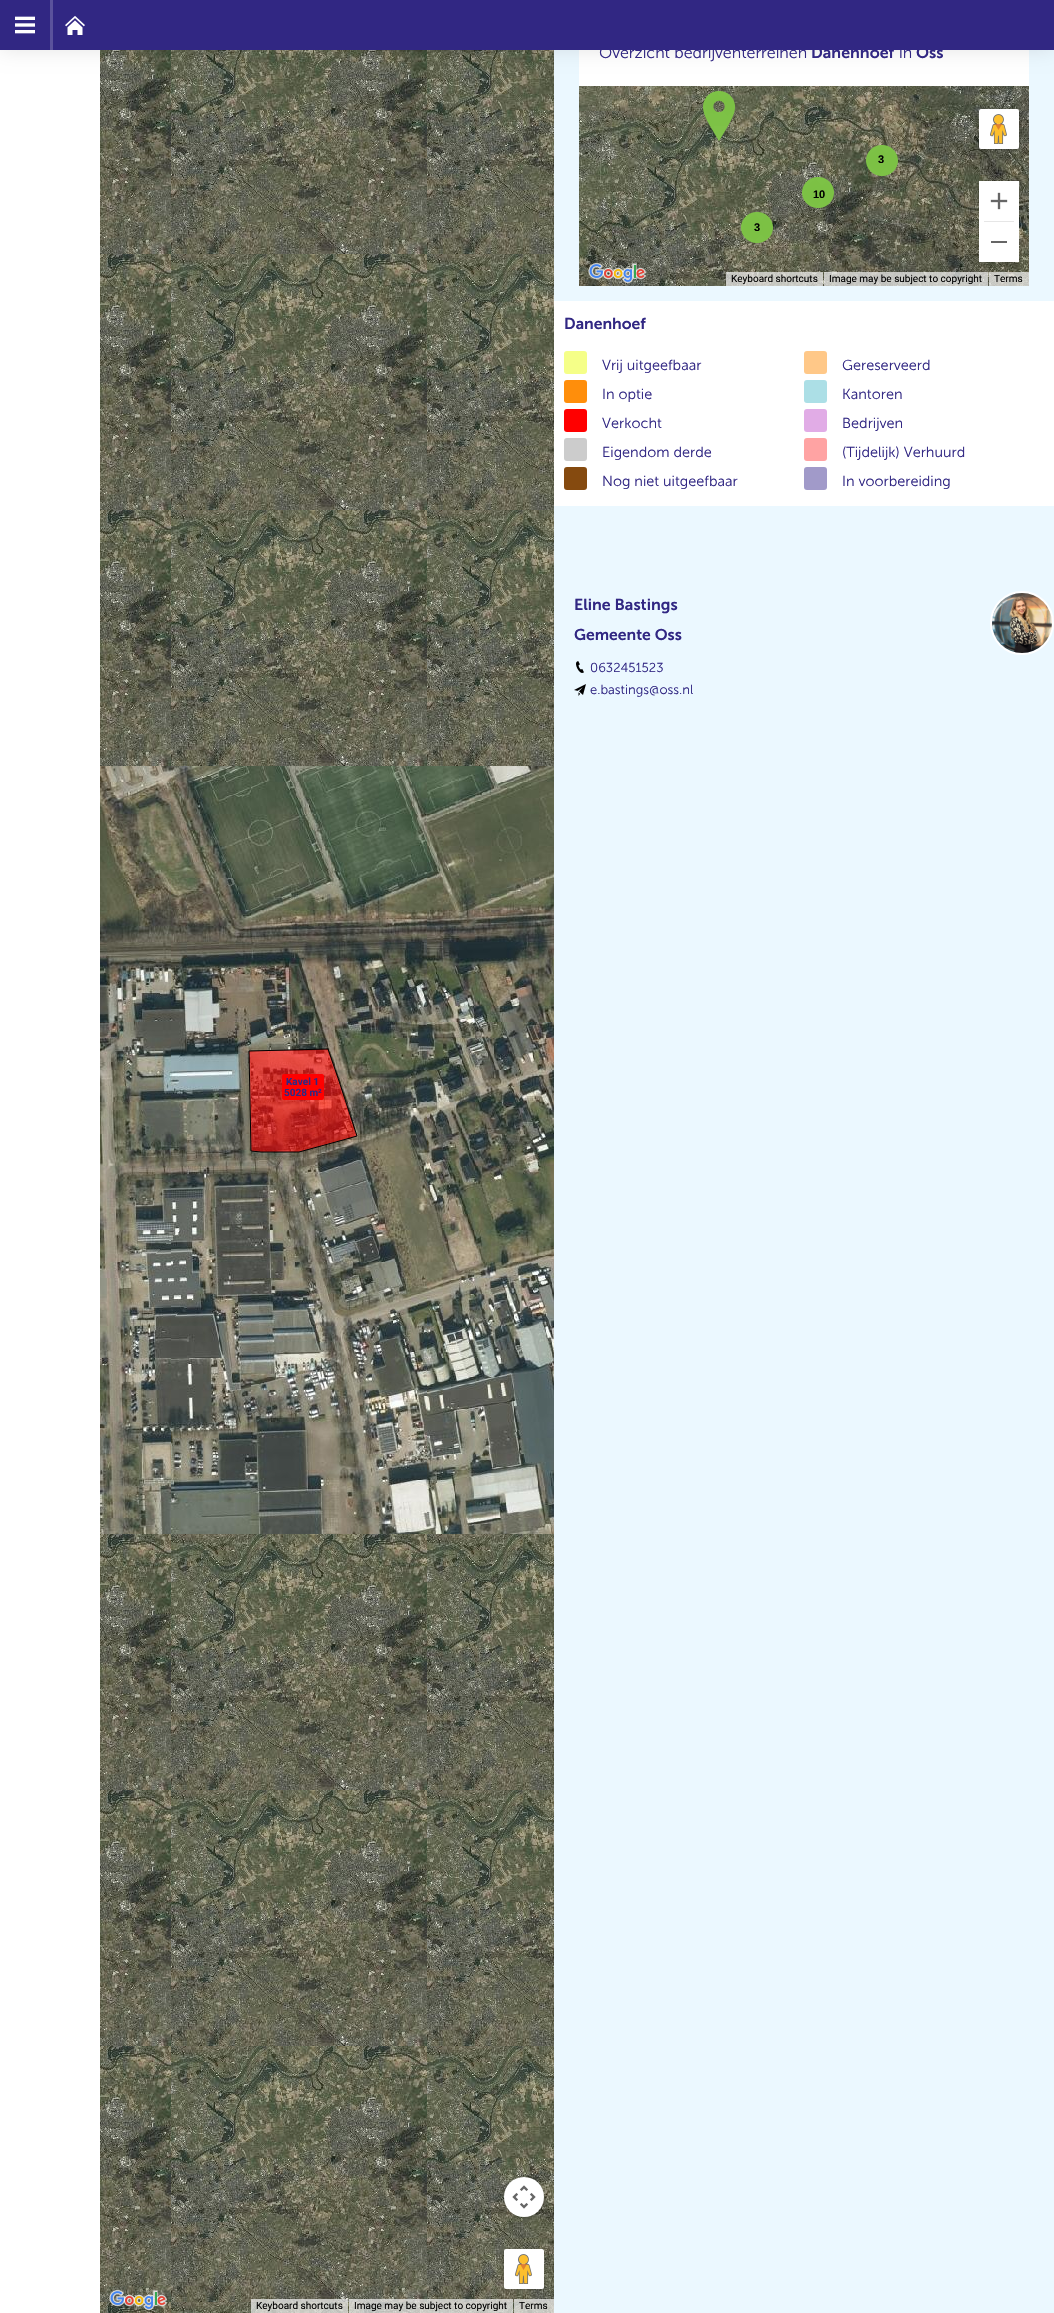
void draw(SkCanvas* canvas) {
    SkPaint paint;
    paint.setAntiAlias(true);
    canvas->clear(0xFFFFFFFF);
    paint.setColor(0xFFEBF8FF);
    canvas->drawRect(SkRect::MakeXYWH(554, 50, 500, 2263), paint);
    paint.setColor(0xFFFFFFFF);
    canvas->drawRect(SkRect::MakeXYWH(579, 50, 450, 36), paint);
    canvas->drawImageRect(SkImages::DeferredFromEncodedData(SkData::MakeFromFileName("img19.png")), SkRect::MakeXYWH(100, 50, 71, 204), SkSamplingOptions());
    canvas->drawImageRect(SkImages::DeferredFromEncodedData(SkData::MakeFromFileName("img20.png")), SkRect::MakeXYWH(171, 50, 256, 204), SkSamplingOptions());
    canvas->drawImageRect(SkImages::DeferredFromEncodedData(SkData::MakeFromFileName("img21.png")), SkRect::MakeXYWH(427, 50, 127, 204), SkSamplingOptions());
    paint.setColor(0x1A000000);
    paint.setMaskFilter(SkMaskFilter::MakeBlur(kNormal_SkBlurStyle, 10));
    canvas->drawRect(SkRect::MakeXYWH(0, 0, 1054, 50), paint);
    paint.setMaskFilter(nullptr);
    paint.setColor(0x4D000000);
    paint.setMaskFilter(SkMaskFilter::MakeBlur(kNormal_SkBlurStyle, 2));
    canvas->drawRoundRect(SkRect::MakeXYWH(363, 12, 68, 38), 1, 1, paint);
    paint.setMaskFilter(nullptr);
    paint.setMaskFilter(SkMaskFilter::MakeBlur(kNormal_SkBlurStyle, 2));
    canvas->drawRoundRect(SkRect::MakeXYWH(433, 12, 110, 38), 1, 1, paint);
    paint.setMaskFilter(nullptr);
    paint.setColor(0xFF312783);
    canvas->drawRect(SkRect::MakeXYWH(0, 0, 1054, 50), paint);
    canvas->drawImageRect(SkImages::DeferredFromEncodedData(SkData::MakeFromFileName("img1.png")), SkRect::MakeXYWH(15, 16, 20, 18), SkSamplingOptions());
    paint.setColor(0xFF5A529C);
    canvas->drawRect(SkRect::MakeXYWH(50, 0, 3, 50), paint);
    canvas->drawImageRect(SkImages::DeferredFromEncodedData(SkData::MakeFromFileName("img2.png")), SkRect::MakeXYWH(65, 16, 20, 19), SkSamplingOptions());
    SkFont font1(fontMgr->matchFamilyStyle("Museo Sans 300", SkFontStyle(300, SkFontStyle::kNormal_Width, SkFontStyle::kUpright_Slant)), 16);
    font1.setSubpixel(true);
    paint.setColor(0xFF312783);
    canvas->drawString("Overzicht bedrijventerreinen", 599, 58, font1, paint);
    SkFont font2(fontMgr->matchFamilyStyle("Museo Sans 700", SkFontStyle(600, SkFontStyle::kNormal_Width, SkFontStyle::kUpright_Slant)), 16);
    font2.setSubpixel(true);
    canvas->drawString("Danenhoef", 811, 58, font2, paint);
    canvas->drawString("in", 899, 58, font1, paint);
    canvas->drawString("Oss", 916, 58, font2, paint);
    canvas->drawImageRect(SkImages::DeferredFromEncodedData(SkData::MakeFromFileName("img3.png")), SkRect::MakeXYWH(579, 86, 33, 25), SkSamplingOptions());
    canvas->drawImageRect(SkImages::DeferredFromEncodedData(SkData::MakeFromFileName("img4.png")), SkRect::MakeXYWH(612, 86, 256, 25), SkSamplingOptions());
    canvas->drawImageRect(SkImages::DeferredFromEncodedData(SkData::MakeFromFileName("img5.png")), SkRect::MakeXYWH(868, 86, 161, 25), SkSamplingOptions());
    canvas->drawImageRect(SkImages::DeferredFromEncodedData(SkData::MakeFromFileName("img6.png")), SkRect::MakeXYWH(579, 111, 33, 175), SkSamplingOptions());
    canvas->drawImageRect(SkImages::DeferredFromEncodedData(SkData::MakeFromFileName("img7.png")), SkRect::MakeXYWH(612, 111, 256, 175), SkSamplingOptions());
    canvas->drawImageRect(SkImages::DeferredFromEncodedData(SkData::MakeFromFileName("img8.png")), SkRect::MakeXYWH(868, 111, 161, 175), SkSamplingOptions());
    canvas->drawImageRect(SkImages::DeferredFromEncodedData(SkData::MakeFromFileName("img9.png")), SkRect::MakeXYWH(703, 91, 32, 50), SkSamplingOptions());
    canvas->drawImageRect(SkImages::DeferredFromEncodedData(SkData::MakeFromFileName("img10.png")), SkRect::MakeXYWH(866, 145, 32, 31), SkSamplingOptions());
    SkFont font3(fontMgr->matchFamilyStyle("Liberation Sans", SkFontStyle::Bold()), 11);
    font3.setSubpixel(true);
    paint.setColor(0xFF000000);
    canvas->drawString("3", 878, 163, font3, paint);
    canvas->drawImageRect(SkImages::DeferredFromEncodedData(SkData::MakeFromFileName("img11.png")), SkRect::MakeXYWH(802, 177, 32, 31), SkSamplingOptions());
    canvas->drawString("10", 813, 198, font3, paint);
    canvas->drawImageRect(SkImages::DeferredFromEncodedData(SkData::MakeFromFileName("img12.png")), SkRect::MakeXYWH(741, 212, 32, 31), SkSamplingOptions());
    canvas->drawString("3", 754, 231, font3, paint);
    paint.setColor(0x4D000000);
    paint.setMaskFilter(SkMaskFilter::MakeBlur(kNormal_SkBlurStyle, 2));
    canvas->drawRoundRect(SkRect::MakeXYWH(980, 111, 38, 38), 1, 1, paint);
    paint.setMaskFilter(nullptr);
    paint.setColor(0xFFFFFFFF);
    canvas->drawRoundRect(SkRect::MakeXYWH(979, 109, 40, 40), 2, 2, paint);
    canvas->drawImageRect(SkImages::DeferredFromEncodedData(SkData::MakeFromFileName("img13.png")), SkRect::MakeXYWH(990, 114, 17, 30), SkSamplingOptions());
    paint.setColor(0x4D000000);
    paint.setMaskFilter(SkMaskFilter::MakeBlur(kNormal_SkBlurStyle, 2));
    canvas->drawRoundRect(SkRect::MakeXYWH(980, 183, 38, 79), 1, 1, paint);
    paint.setMaskFilter(nullptr);
    paint.setColor(0xFFFFFFFF);
    canvas->drawRect(SkRect::MakeXYWH(979, 181, 40, 81), paint);
    canvas->drawImageRect(SkImages::DeferredFromEncodedData(SkData::MakeFromFileName("img14.png")), SkRect::MakeXYWH(990, 192, 18, 18), SkSamplingOptions());
    paint.setColor(0xFFE6E6E6);
    canvas->drawRect(SkRect::MakeXYWH(984, 221, 30, 1), paint);
    paint.setColor(0xFF666666);
    canvas->drawRect(SkRect::MakeXYWH(991, 241, 16, 2), paint);
    canvas->drawImageRect(SkImages::DeferredFromEncodedData(SkData::MakeFromFileName("img15.png")), SkRect::MakeXYWH(588, 262, 59, 22), SkSamplingOptions());
    paint.setColor(0xB3F5F5F5);
    canvas->drawRect(SkRect::MakeXYWH(726, 272, 97, 14), paint);
    SkFont font4(fontMgr->matchFamilyStyle("Roboto", SkFontStyle::Normal()), 10);
    font4.setSubpixel(true);
    paint.setColor(0xFF000000);
    canvas->drawString("Keyboard shortcuts", 731, 282, font4, paint);
    paint.setColor(0xB3F5F5F5);
    canvas->drawRect(SkRect::MakeXYWH(824, 272, 164, 14), paint);
    paint.setColor(0xFF000000);
    canvas->drawString("Image may be subject to copyright", 829, 282, font4, paint);
    paint.setColor(0xB3F5F5F5);
    canvas->drawRect(SkRect::MakeXYWH(989, 272, 40, 14), paint);
    paint.setColor(0xFF000000);
    canvas->drawString("Terms", 994, 282, font4, paint);
    paint.setColor(0xFFFFFFFF);
    canvas->drawRect(SkRect::MakeXYWH(554, 301, 500, 205), paint);
    SkFont font5(fontMgr->matchFamilyStyle("Museo Sans 700", SkFontStyle(600, SkFontStyle::kNormal_Width, SkFontStyle::kUpright_Slant)), 15.75f);
    font5.setSubpixel(true);
    paint.setColor(0xFF312783);
    canvas->drawString("Danenhoef", 564, 329, font5, paint);
    paint.setColor(0xFFF5FF88);
    canvas->drawRoundRect(SkRect::MakeXYWH(564, 351, 23, 23), 3, 3, paint);
    SkFont font6(fontMgr->matchFamilyStyle("Museo Sans 300", SkFontStyle(300, SkFontStyle::kNormal_Width, SkFontStyle::kUpright_Slant)), 14.5f);
    font6.setSubpixel(true);
    paint.setColor(0xFF312783);
    canvas->drawString("Vrij uitgeefbaar", 602, 370, font6, paint);
    paint.setColor(0xFFFFC888);
    canvas->drawRoundRect(SkRect::MakeXYWH(804, 351, 23, 23), 3, 3, paint);
    paint.setColor(0xFF312783);
    canvas->drawString("Gereserveerd", 842, 370, font6, paint);
    paint.setColor(0xFFFF8E0B);
    canvas->drawRoundRect(SkRect::MakeXYWH(564, 380, 23, 23), 3, 3, paint);
    paint.setColor(0xFF312783);
    canvas->drawString("In optie", 602, 399, font6, paint);
    paint.setColor(0xFFACDFE6);
    canvas->drawRoundRect(SkRect::MakeXYWH(804, 380, 23, 23), 3, 3, paint);
    paint.setColor(0xFF312783);
    canvas->drawString("Kantoren", 842, 399, font6, paint);
    paint.setColor(0xFFFF0000);
    canvas->drawRoundRect(SkRect::MakeXYWH(564, 409, 23, 23), 3, 3, paint);
    paint.setColor(0xFF312783);
    canvas->drawString("Verkocht", 602, 428, font6, paint);
    paint.setColor(0xFFE1ACE6);
    canvas->drawRoundRect(SkRect::MakeXYWH(804, 409, 23, 23), 3, 3, paint);
    paint.setColor(0xFF312783);
    canvas->drawString("Bedrijven", 842, 428, font6, paint);
    paint.setColor(0xFFCCCCCC);
    canvas->drawRoundRect(SkRect::MakeXYWH(564, 438, 23, 23), 3, 3, paint);
    paint.setColor(0xFF312783);
    canvas->drawString("Eigendom derde", 602, 457, font6, paint);
    paint.setColor(0xFFFFA3A3);
    canvas->drawRoundRect(SkRect::MakeXYWH(804, 438, 23, 23), 3, 3, paint);
    paint.setColor(0xFF312783);
    canvas->drawString("(Tijdelijk) Verhuurd", 842, 457, font6, paint);
    paint.setColor(0xFF854A0F);
    canvas->drawRoundRect(SkRect::MakeXYWH(564, 467, 23, 23), 3, 3, paint);
    paint.setColor(0xFF312783);
    canvas->drawString("Nog niet uitgeefbaar", 602, 486, font6, paint);
    paint.setColor(0xFFA19AC9);
    canvas->drawRoundRect(SkRect::MakeXYWH(804, 467, 23, 23), 3, 3, paint);
    paint.setColor(0xFF312783);
    canvas->drawString("In voorbereiding", 842, 486, font6, paint);
    canvas->drawString("Eline Bastings", 574, 610, font2, paint);
    canvas->drawString("Gemeente Oss", 574, 640, font5, paint);
    canvas->drawImageRect(SkImages::DeferredFromEncodedData(SkData::MakeFromFileName("img16.png")), SkRect::MakeXYWH(576, 661, 8, 12), SkSamplingOptions());
    SkFont font7(fontMgr->matchFamilyStyle("Museo Sans 300", SkFontStyle(300, SkFontStyle::kNormal_Width, SkFontStyle::kUpright_Slant)), 13);
    font7.setSubpixel(true);
    canvas->drawString("0632451523", 590, 672, font7, paint);
    canvas->drawImageRect(SkImages::DeferredFromEncodedData(SkData::MakeFromFileName("img17.png")), SkRect::MakeXYWH(574, 684, 12, 12), SkSamplingOptions());
    canvas->drawString("e.bastings@oss.nl", 590, 694, font7, paint);
    paint.setStyle(SkPaint::kStroke_Style);
    paint.setStrokeWidth(2);
    paint.setColor(0xFFFFFFFF);
    canvas->drawCircle(1022, 623, 31, paint);
    canvas->drawImageRect(SkImages::DeferredFromEncodedData(SkData::MakeFromFileName("img18.png")), SkRect::MakeXYWH(992, 593, 60, 60), SkSamplingOptions());
    canvas->drawImageRect(SkImages::DeferredFromEncodedData(SkData::MakeFromFileName("img22.png")), SkRect::MakeXYWH(100, 254, 71, 256), SkSamplingOptions());
    canvas->drawImageRect(SkImages::DeferredFromEncodedData(SkData::MakeFromFileName("img23.png")), SkRect::MakeXYWH(171, 254, 256, 256), SkSamplingOptions());
    canvas->drawImageRect(SkImages::DeferredFromEncodedData(SkData::MakeFromFileName("img24.png")), SkRect::MakeXYWH(427, 254, 127, 256), SkSamplingOptions());
    canvas->drawImageRect(SkImages::DeferredFromEncodedData(SkData::MakeFromFileName("img22.png")), SkRect::MakeXYWH(100, 510, 71, 256), SkSamplingOptions());
    canvas->drawImageRect(SkImages::DeferredFromEncodedData(SkData::MakeFromFileName("img23.png")), SkRect::MakeXYWH(171, 510, 256, 256), SkSamplingOptions());
    canvas->drawImageRect(SkImages::DeferredFromEncodedData(SkData::MakeFromFileName("img24.png")), SkRect::MakeXYWH(427, 510, 127, 256), SkSamplingOptions());
    canvas->drawImageRect(SkImages::DeferredFromEncodedData(SkData::MakeFromFileName("img25.png")), SkRect::MakeXYWH(100, 766, 71, 256), SkSamplingOptions());
    canvas->drawImageRect(SkImages::DeferredFromEncodedData(SkData::MakeFromFileName("img26.png")), SkRect::MakeXYWH(171, 766, 256, 256), SkSamplingOptions());
    canvas->drawImageRect(SkImages::DeferredFromEncodedData(SkData::MakeFromFileName("img27.png")), SkRect::MakeXYWH(427, 766, 127, 256), SkSamplingOptions());
    canvas->drawImageRect(SkImages::DeferredFromEncodedData(SkData::MakeFromFileName("img28.png")), SkRect::MakeXYWH(100, 1022, 71, 256), SkSamplingOptions());
    canvas->drawImageRect(SkImages::DeferredFromEncodedData(SkData::MakeFromFileName("img29.png")), SkRect::MakeXYWH(171, 1022, 256, 256), SkSamplingOptions());
    canvas->drawImageRect(SkImages::DeferredFromEncodedData(SkData::MakeFromFileName("img30.png")), SkRect::MakeXYWH(427, 1022, 127, 256), SkSamplingOptions());
    canvas->drawImageRect(SkImages::DeferredFromEncodedData(SkData::MakeFromFileName("img31.png")), SkRect::MakeXYWH(100, 1278, 71, 256), SkSamplingOptions());
    canvas->drawImageRect(SkImages::DeferredFromEncodedData(SkData::MakeFromFileName("img32.png")), SkRect::MakeXYWH(171, 1278, 256, 256), SkSamplingOptions());
    canvas->drawImageRect(SkImages::DeferredFromEncodedData(SkData::MakeFromFileName("img33.png")), SkRect::MakeXYWH(427, 1278, 127, 256), SkSamplingOptions());
    canvas->drawImageRect(SkImages::DeferredFromEncodedData(SkData::MakeFromFileName("img22.png")), SkRect::MakeXYWH(100, 1534, 71, 256), SkSamplingOptions());
    canvas->drawImageRect(SkImages::DeferredFromEncodedData(SkData::MakeFromFileName("img23.png")), SkRect::MakeXYWH(171, 1534, 256, 256), SkSamplingOptions());
    canvas->drawImageRect(SkImages::DeferredFromEncodedData(SkData::MakeFromFileName("img24.png")), SkRect::MakeXYWH(427, 1534, 127, 256), SkSamplingOptions());
    canvas->drawImageRect(SkImages::DeferredFromEncodedData(SkData::MakeFromFileName("img22.png")), SkRect::MakeXYWH(100, 1790, 71, 256), SkSamplingOptions());
    canvas->drawImageRect(SkImages::DeferredFromEncodedData(SkData::MakeFromFileName("img23.png")), SkRect::MakeXYWH(171, 1790, 256, 256), SkSamplingOptions());
    canvas->drawImageRect(SkImages::DeferredFromEncodedData(SkData::MakeFromFileName("img24.png")), SkRect::MakeXYWH(427, 1790, 127, 256), SkSamplingOptions());
    canvas->drawImageRect(SkImages::DeferredFromEncodedData(SkData::MakeFromFileName("img22.png")), SkRect::MakeXYWH(100, 2046, 71, 256), SkSamplingOptions());
    canvas->drawImageRect(SkImages::DeferredFromEncodedData(SkData::MakeFromFileName("img23.png")), SkRect::MakeXYWH(171, 2046, 256, 256), SkSamplingOptions());
    canvas->drawImageRect(SkImages::DeferredFromEncodedData(SkData::MakeFromFileName("img24.png")), SkRect::MakeXYWH(427, 2046, 127, 256), SkSamplingOptions());
    canvas->drawImageRect(SkImages::DeferredFromEncodedData(SkData::MakeFromFileName("img34.png")), SkRect::MakeXYWH(100, 2302, 71, 11), SkSamplingOptions());
    canvas->drawImageRect(SkImages::DeferredFromEncodedData(SkData::MakeFromFileName("img35.png")), SkRect::MakeXYWH(171, 2302, 256, 11), SkSamplingOptions());
    canvas->drawImageRect(SkImages::DeferredFromEncodedData(SkData::MakeFromFileName("img36.png")), SkRect::MakeXYWH(427, 2302, 127, 11), SkSamplingOptions());
    canvas->drawImageRect(SkImages::DeferredFromEncodedData(SkData::MakeFromFileName("img37.png")), SkRect::MakeXYWH(248, 1048, 110, 105), SkSamplingOptions());
    paint.setStyle(SkPaint::kFill_Style);
    paint.setColor(0xFFFF0000);
    canvas->drawRoundRect(SkRect::MakeXYWH(282, 1074, 42, 26), 2, 2, paint);
    SkFont font8(fontMgr->matchFamilyStyle("Roboto", SkFontStyle::Bold()), 10);
    font8.setSubpixel(true);
    paint.setColor(0xFF312783);
    canvas->drawString("Kavel 1", 286, 1085, font8, paint);
    canvas->drawString("5028 m²", 284, 1096, font8, paint);
    paint.setColor(0x4D000000);
    paint.setMaskFilter(SkMaskFilter::MakeBlur(kNormal_SkBlurStyle, 2));
    canvas->drawRoundRect(SkRect::MakeXYWH(505, 2179, 38, 38), 19, 19, paint);
    paint.setMaskFilter(nullptr);
    paint.setColor(0xFFFFFFFF);
    canvas->drawCircle(524, 2197, 20, paint);
    canvas->drawImageRect(SkImages::DeferredFromEncodedData(SkData::MakeFromFileName("img38.png")), SkRect::MakeXYWH(512, 2185, 24, 24), SkSamplingOptions());
    paint.setColor(0x4D000000);
    paint.setMaskFilter(SkMaskFilter::MakeBlur(kNormal_SkBlurStyle, 2));
    canvas->drawRoundRect(SkRect::MakeXYWH(505, 2251, 38, 38), 1, 1, paint);
    paint.setMaskFilter(nullptr);
    paint.setColor(0xFFFFFFFF);
    canvas->drawRoundRect(SkRect::MakeXYWH(504, 2249, 40, 40), 2, 2, paint);
    canvas->drawImageRect(SkImages::DeferredFromEncodedData(SkData::MakeFromFileName("img13.png")), SkRect::MakeXYWH(515, 2254, 17, 30), SkSamplingOptions());
    canvas->drawImageRect(SkImages::DeferredFromEncodedData(SkData::MakeFromFileName("img39.png")), SkRect::MakeXYWH(109, 2289, 59, 22), SkSamplingOptions());
    paint.setColor(0xB3F5F5F5);
    canvas->drawRect(SkRect::MakeXYWH(251, 2299, 97, 14), paint);
    paint.setColor(0xFF000000);
    canvas->drawString("Keyboard shortcuts", 256, 2309, font4, paint);
    paint.setColor(0xB3F5F5F5);
    canvas->drawRect(SkRect::MakeXYWH(349, 2299, 164, 14), paint);
    paint.setColor(0xFF000000);
    canvas->drawString("Image may be subject to copyright", 354, 2309, font4, paint);
    paint.setColor(0xB3F5F5F5);
    canvas->drawRect(SkRect::MakeXYWH(514, 2299, 40, 14), paint);
    paint.setColor(0xFF000000);
    canvas->drawString("Terms", 519, 2309, font4, paint);
}
